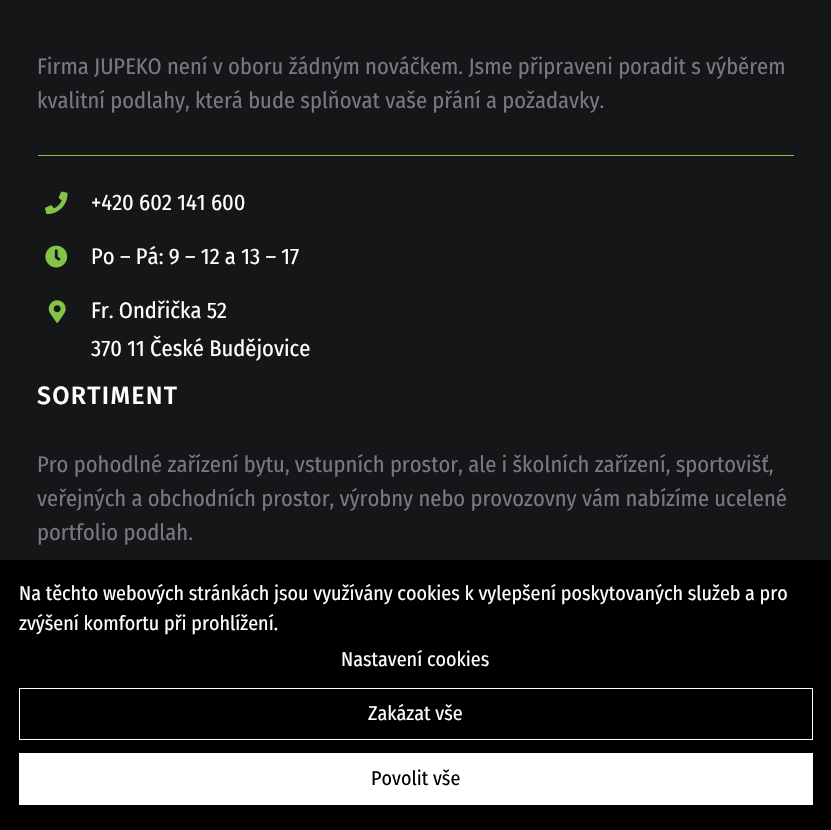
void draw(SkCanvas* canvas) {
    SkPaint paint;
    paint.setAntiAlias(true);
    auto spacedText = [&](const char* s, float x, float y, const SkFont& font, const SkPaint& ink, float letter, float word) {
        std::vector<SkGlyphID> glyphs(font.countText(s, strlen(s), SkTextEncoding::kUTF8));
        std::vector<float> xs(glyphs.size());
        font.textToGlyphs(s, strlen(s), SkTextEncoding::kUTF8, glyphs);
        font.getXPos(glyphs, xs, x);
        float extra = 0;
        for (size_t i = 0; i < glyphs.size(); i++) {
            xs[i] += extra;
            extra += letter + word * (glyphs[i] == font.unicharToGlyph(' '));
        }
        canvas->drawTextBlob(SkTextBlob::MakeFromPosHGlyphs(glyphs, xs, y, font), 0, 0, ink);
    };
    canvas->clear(0xFF141617);
    SkFont font1(fontMgr->matchFamilyStyle("Fira Sans Condensed", SkFontStyle::Normal()), 22.5f);
    font1.setSubpixel(true);
    paint.setColor(0xFF777882);
    canvas->drawString("Firma JUPEKO není v oboru žádným nováčkem. Jsme připraveni poradit s výběrem", 37, 74, font1, paint);
    canvas->drawString("kvalitní podlahy, která bude splňovat vaše přání a požadavky.", 37, 108, font1, paint);
    paint.setColor(0xFF83C446);
    canvas->drawRect(SkRect::MakeXYWH(38, 155, 756, 1), paint);
    canvas->drawImageRect(SkImages::DeferredFromEncodedData(SkData::MakeFromFileName("img1.png")), SkRect::MakeXYWH(45, 191, 23, 24), SkSamplingOptions());
    paint.setColor(0xFFFFFFFF);
    canvas->drawString("+420 602 141 600", 91, 210, font1, paint);
    canvas->drawImageRect(SkImages::DeferredFromEncodedData(SkData::MakeFromFileName("img2.png")), SkRect::MakeXYWH(45, 245, 23, 23), SkSamplingOptions());
    canvas->drawString("Po – Pá: 9 – 12 a 13 – 17", 91, 264, font1, paint);
    canvas->drawImageRect(SkImages::DeferredFromEncodedData(SkData::MakeFromFileName("img3.png")), SkRect::MakeXYWH(48, 300, 18, 23), SkSamplingOptions());
    canvas->drawString("Fr. Ondřička 52", 91, 318, font1, paint);
    canvas->drawString("370 11 České Budějovice", 91, 356, font1, paint);
    SkFont font2(fontMgr->matchFamilyStyle("Fira Sans", SkFontStyle(500, SkFontStyle::kNormal_Width, SkFontStyle::kUpright_Slant)), 25);
    font2.setSubpixel(true);
    spacedText("SORTIMENT", 37, 404, font2, paint, 1.25f, 0);
    paint.setColor(0xFF777882);
    canvas->drawString("Pro pohodlné zařízení bytu, vstupních prostor, ale i školních zařízení, sportovišť,", 37, 472, font1, paint);
    canvas->drawString("veřejných a obchodních prostor, výrobny nebo provozovny vám nabízíme ucelené", 37, 506, font1, paint);
    canvas->drawString("portfolio podlah.", 37, 540, font1, paint);
    paint.setColor(0xFF000000);
    canvas->drawRect(SkRect::MakeXYWH(0, 560, 831, 270), paint);
    SkFont font3(fontMgr->matchFamilyStyle("Fira Sans Condensed", SkFontStyle::Normal()), 20);
    font3.setSubpixel(true);
    paint.setColor(0xFFFFFFFF);
    canvas->drawString("Na těchto webových stránkách jsou využívány cookies k vylepšení poskytovaných služeb a pro", 19, 600, font3, paint);
    canvas->drawString("zvýšení komfortu při prohlížení.", 19, 630, font3, paint);
    canvas->drawString("Nastavení cookies", 341, 666, font3, paint);
    paint.setStyle(SkPaint::kStroke_Style);
    paint.setStrokeWidth(1);
    canvas->drawRect(SkRect::MakeXYWH(19.5f, 688.5f, 793, 51), paint);
    paint.setStyle(SkPaint::kFill_Style);
    canvas->drawString("Zakázat vše", 368, 720, font3, paint);
    canvas->drawRect(SkRect::MakeXYWH(19, 753, 794, 52), paint);
    paint.setColor(0xFF000000);
    canvas->drawString("Povolit vše", 371, 785, font3, paint);
}
